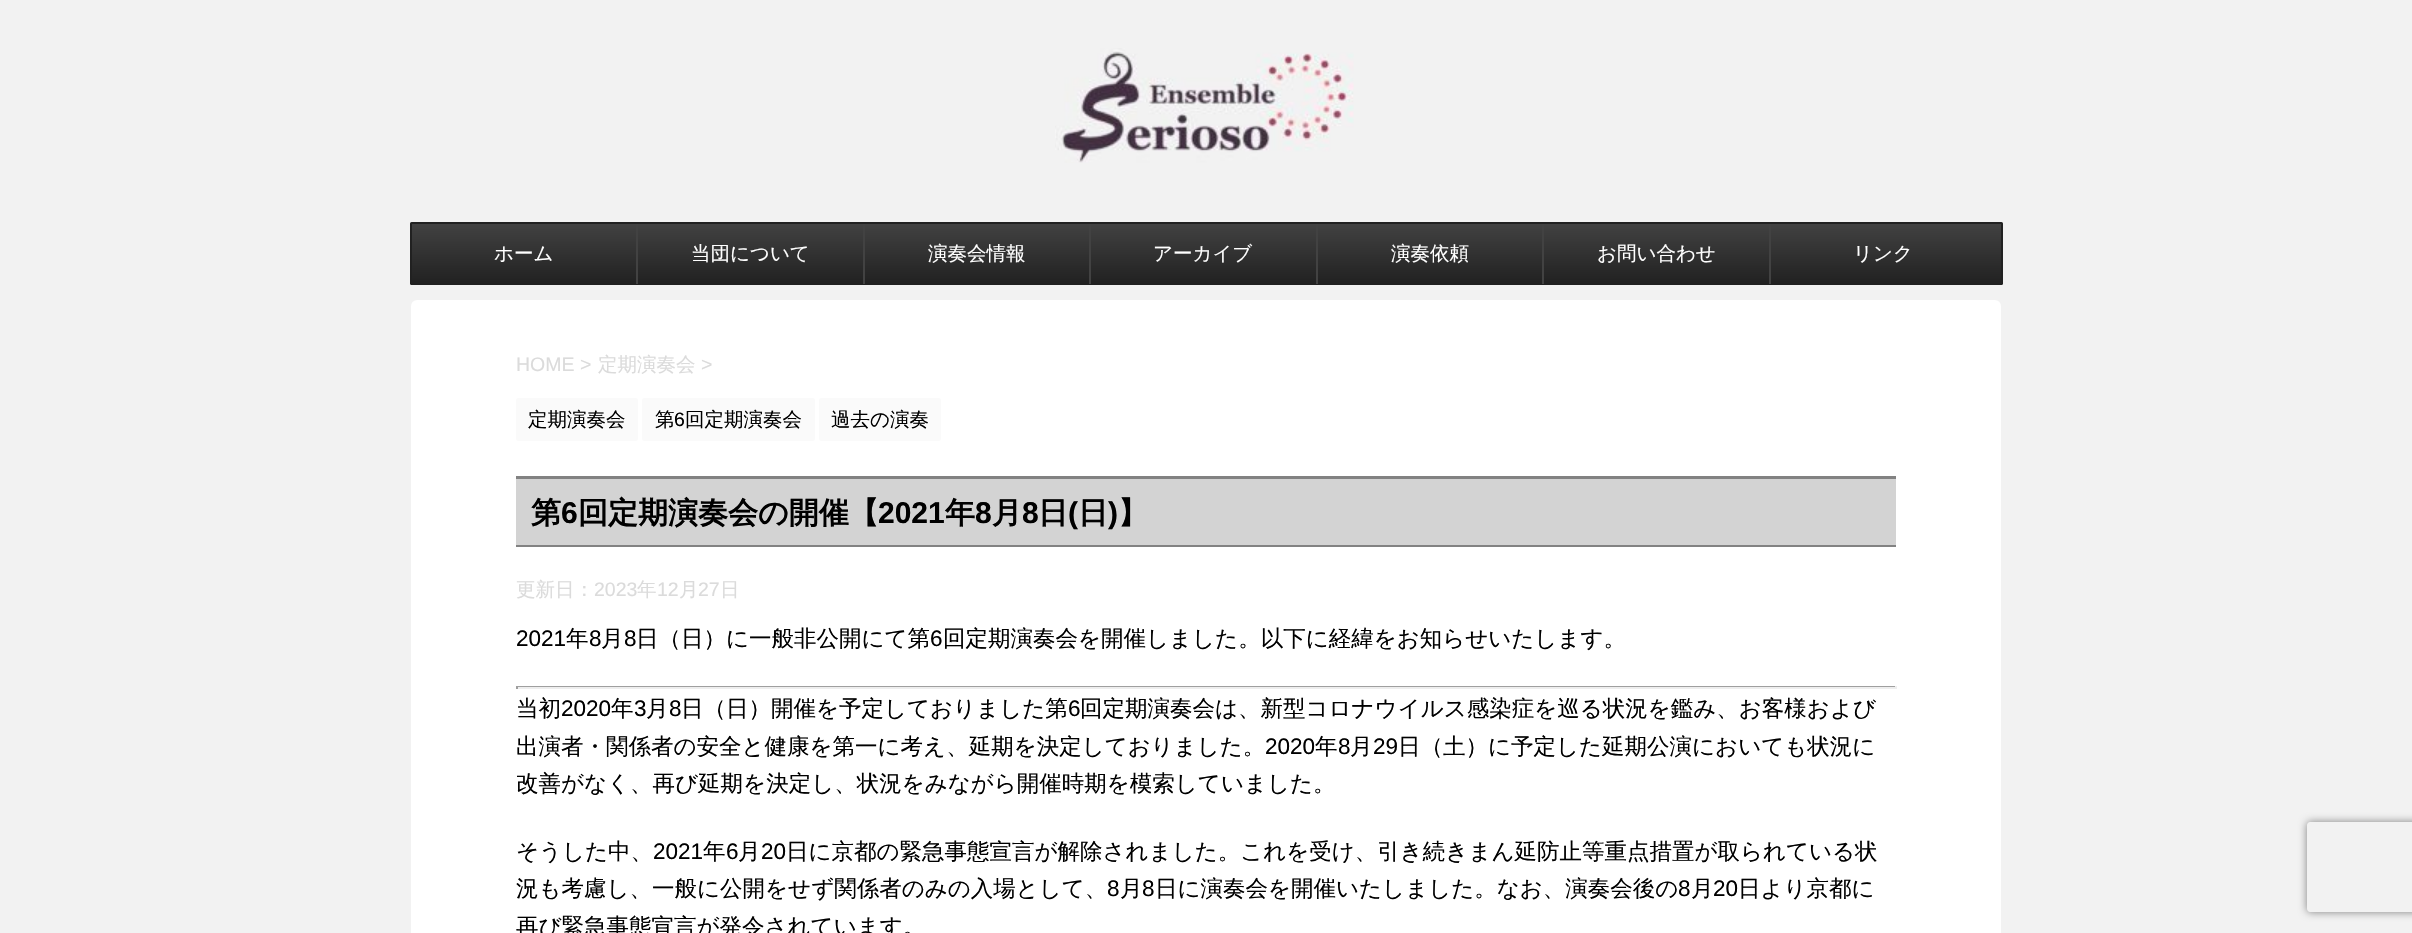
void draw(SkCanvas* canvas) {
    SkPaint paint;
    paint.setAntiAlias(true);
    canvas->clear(0xFFF2F2F2);
    canvas->drawImageRect(SkImages::DeferredFromEncodedData(SkData::MakeFromFileName("img1.png")), SkRect::MakeXYWH(1055, 48, 299, 115), SkSamplingOptions());
    {
        const SkColor colors[] = {0xFF424242, 0xFF212121};
        const float stops[] = {0, 1};
        const SkPoint ends[] = {{1206, 223}, {1206, 284}};
        paint.setShader(SkGradientShader::MakeLinear(ends, colors, stops, 2, SkTileMode::kClamp));
        paint.setAlpha(255);
    }
    canvas->drawRect(SkRect::MakeXYWH(410, 224, 1593, 60), paint);
    paint.setStyle(SkPaint::kStroke_Style);
    paint.setStrokeWidth(2);
    paint.setShader(nullptr);
    paint.setColor(0xFF212121);
    canvas->drawRoundRect(SkRect::MakeXYWH(411, 223, 1591, 61), 0.5f, 0.5f, paint);
    paint.setStyle(SkPaint::kFill_Style);
    paint.setColor(0xFF424242);
    canvas->drawRect(SkRect::MakeXYWH(636, 224, 2, 60), paint);
    SkFont font1(fontMgr->matchFamilyStyle("WenQuanYi Zen Hei", SkFontStyle(500, SkFontStyle::kNormal_Width, SkFontStyle::kUpright_Slant)), 19.5f);
    font1.setSubpixel(true);
    paint.setColor(0xFFFFFFFF);
    canvas->drawString("ホーム", 494, 260, font1, paint);
    paint.setColor(0xFF424242);
    canvas->drawRect(SkRect::MakeXYWH(863, 224, 2, 60), paint);
    paint.setColor(0xFFFFFFFF);
    canvas->drawString("当団について", 691, 260, font1, paint);
    paint.setColor(0xFF424242);
    canvas->drawRect(SkRect::MakeXYWH(1089, 224, 2, 60), paint);
    paint.setColor(0xFFFFFFFF);
    canvas->drawString("演奏会情報", 928, 260, font1, paint);
    paint.setColor(0xFF424242);
    canvas->drawRect(SkRect::MakeXYWH(1316, 224, 2, 60), paint);
    paint.setColor(0xFFFFFFFF);
    canvas->drawString("アーカイブ", 1153, 260, font1, paint);
    paint.setColor(0xFF424242);
    canvas->drawRect(SkRect::MakeXYWH(1542, 224, 2, 60), paint);
    paint.setColor(0xFFFFFFFF);
    canvas->drawString("演奏依頼", 1391, 260, font1, paint);
    paint.setColor(0xFF424242);
    canvas->drawRect(SkRect::MakeXYWH(1769, 224, 2, 60), paint);
    paint.setColor(0xFFFFFFFF);
    canvas->drawString("お問い合わせ", 1597, 260, font1, paint);
    canvas->drawString("リンク", 1853, 260, font1, paint);
    canvas->drawRoundRect(SkRect::MakeXYWH(411, 300, 1590, 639), 6, 6, paint);
    SkFont font2(fontMgr->matchFamilyStyle("Liberation Sans", SkFontStyle::Normal()), 19.5f);
    font2.setSubpixel(true);
    paint.setColor(0xFFDBDBDB);
    canvas->drawString("HOME >", 516, 371, font2, paint);
    canvas->drawString("定期演奏会", 598, 371, font1, paint);
    canvas->drawString(">", 701, 371, font2, paint);
    paint.setColor(0xFFFAFAFA);
    canvas->drawRoundRect(SkRect::MakeXYWH(516, 398, 122, 43), 3, 3, paint);
    paint.setColor(0xFF000000);
    canvas->drawString("定期演奏会", 528, 426, font1, paint);
    paint.setColor(0xFFFAFAFA);
    canvas->drawRoundRect(SkRect::MakeXYWH(642, 398, 173, 43), 3, 3, paint);
    paint.setColor(0xFF000000);
    canvas->drawString("第", 655, 426, font1, paint);
    canvas->drawString("6", 674, 426, font2, paint);
    canvas->drawString("回定期演奏会", 685, 426, font1, paint);
    paint.setColor(0xFFFAFAFA);
    canvas->drawRoundRect(SkRect::MakeXYWH(819, 398, 122, 43), 3, 3, paint);
    paint.setColor(0xFF000000);
    canvas->drawString("過去の演奏", 831, 426, font1, paint);
    paint.setColor(0xFFD3D3D3);
    canvas->drawRect(SkRect::MakeXYWH(516, 479, 1380, 66), paint);
    paint.setColor(0xFF828282);
    canvas->drawRect(SkRect::MakeXYWH(516, 476, 1380, 3), paint);
    canvas->drawRect(SkRect::MakeXYWH(516, 545, 1380, 2), paint);
    SkFont font3(fontMgr->matchFamilyStyle("WenQuanYi Zen Hei", SkFontStyle::Bold()), 30);
    font3.setSubpixel(true);
    paint.setColor(0xFF000000);
    canvas->drawString("第", 531, 523, font3, paint);
    SkFont font4(fontMgr->matchFamilyStyle("Liberation Sans", SkFontStyle::Bold()), 30);
    font4.setSubpixel(true);
    canvas->drawString("6", 561, 523, font4, paint);
    canvas->drawString("回定期演奏会の開催【", 578, 523, font3, paint);
    canvas->drawString("2021", 878, 523, font4, paint);
    canvas->drawString("年", 945, 523, font3, paint);
    canvas->drawString("8", 975, 523, font4, paint);
    canvas->drawString("月", 992, 523, font3, paint);
    canvas->drawString("8", 1022, 523, font4, paint);
    canvas->drawString("日", 1038, 523, font3, paint);
    canvas->drawString("(", 1068, 523, font4, paint);
    canvas->drawString("日", 1078, 523, font3, paint);
    canvas->drawString(")", 1108, 523, font4, paint);
    canvas->drawString("】", 1118, 523, font3, paint);
    paint.setColor(0xFFDBDBDB);
    canvas->drawString("更新日：", 516, 596, font1, paint);
    canvas->drawString("2023", 594, 596, font2, paint);
    canvas->drawString("年", 637, 596, font1, paint);
    canvas->drawString("12", 657, 596, font2, paint);
    canvas->drawString("月", 679, 596, font1, paint);
    canvas->drawString("27", 698, 596, font2, paint);
    canvas->drawString("日", 720, 596, font1, paint);
    SkFont font5(fontMgr->matchFamilyStyle("Liberation Sans", SkFontStyle::Normal()), 22.5f);
    font5.setSubpixel(true);
    paint.setColor(0xFF000000);
    canvas->drawString("2021", 516, 646, font5, paint);
    SkFont font6(fontMgr->matchFamilyStyle("WenQuanYi Zen Hei", SkFontStyle(500, SkFontStyle::kNormal_Width, SkFontStyle::kUpright_Slant)), 22.5f);
    font6.setSubpixel(true);
    canvas->drawString("年", 566, 646, font6, paint);
    canvas->drawString("8", 589, 646, font5, paint);
    canvas->drawString("月", 601, 646, font6, paint);
    canvas->drawString("8", 624, 646, font5, paint);
    canvas->drawString("日（日）に一般非公開にて第", 636, 646, font6, paint);
    canvas->drawString("6", 930, 646, font5, paint);
    canvas->drawString("回定期演奏会を開催しました。以下に経緯をお知らせいたします。", 943, 646, font6, paint);
    paint.setColor(0xFF9F9F9F);
    canvas->drawRect(SkRect::MakeXYWH(516, 686, 1380, 1), paint);
    paint.setColor(0xFFEEEEEE);
    canvas->drawRect(SkRect::MakeXYWH(1895, 686, 2, 3), paint);
    canvas->drawRect(SkRect::MakeXYWH(516, 687, 1380, 2), paint);
    paint.setColor(0xFF9F9F9F);
    canvas->drawRect(SkRect::MakeXYWH(516, 686, 2, 3), paint);
    paint.setColor(0xFF000000);
    canvas->drawString("当初", 516, 716, font6, paint);
    canvas->drawString("2020", 561, 716, font5, paint);
    canvas->drawString("年", 611, 716, font6, paint);
    canvas->drawString("3", 634, 716, font5, paint);
    canvas->drawString("月", 646, 716, font6, paint);
    canvas->drawString("8", 669, 716, font5, paint);
    canvas->drawString("日（日）開催を予定しておりました第", 681, 716, font6, paint);
    canvas->drawString("6", 1068, 716, font5, paint);
    canvas->drawString("回定期演奏会は、新型コロナウイルス感染症を巡る状況を鑑み、お客様および", 1080, 716, font6, paint);
    canvas->drawString("出演者・関係者の安全と健康を第一に考え、延期を決定しておりました。", 516, 754, font6, paint);
    canvas->drawString("2020", 1265, 754, font5, paint);
    canvas->drawString("年", 1315, 754, font6, paint);
    canvas->drawString("8", 1338, 754, font5, paint);
    canvas->drawString("月", 1350, 754, font6, paint);
    canvas->drawString("29", 1373, 754, font5, paint);
    canvas->drawString("日（土）に予定した延期公演においても状況に", 1398, 754, font6, paint);
    canvas->drawString("改善がなく、再び延期を決定し、状況をみながら開催時期を模索していました。", 516, 791, font6, paint);
    canvas->drawString("そうした中、", 516, 859, font6, paint);
    canvas->drawString("2021", 653, 859, font5, paint);
    canvas->drawString("年", 703, 859, font6, paint);
    canvas->drawString("6", 726, 859, font5, paint);
    canvas->drawString("月", 738, 859, font6, paint);
    canvas->drawString("20", 761, 859, font5, paint);
    canvas->drawString("日に京都の緊急事態宣言が解除されました。これを受け、引き続きまん延防止等重点措置が取られている状", 786, 859, font6, paint);
    canvas->drawString("況も考慮し、一般に公開をせず関係者のみの入場として、", 516, 896, font6, paint);
    canvas->drawString("8", 1107, 896, font5, paint);
    canvas->drawString("月", 1120, 896, font6, paint);
    canvas->drawString("8", 1142, 896, font5, paint);
    canvas->drawString("日に演奏会を開催いたしました。なお、演奏会後の", 1155, 896, font6, paint);
    canvas->drawString("8", 1678, 896, font5, paint);
    canvas->drawString("月", 1691, 896, font6, paint);
    canvas->drawString("20", 1713, 896, font5, paint);
    canvas->drawString("日より京都に", 1738, 896, font6, paint);
    canvas->drawString("再び緊急事態宣言が発令されています。", 516, 934, font6, paint);
    canvas->save();
    canvas->clipPath(SkPathBuilder(SkPathFillType::kEvenOdd).moveTo(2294, 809).lineTo(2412, 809).lineTo(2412, 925).lineTo(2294, 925).close().moveTo(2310, 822).lineTo(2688, 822).cubicTo(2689.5f, 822, 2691, 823.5f, 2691, 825).lineTo(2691, 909).cubicTo(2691, 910.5f, 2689.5f, 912, 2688, 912).lineTo(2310, 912).cubicTo(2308.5f, 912, 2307, 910.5f, 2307, 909).lineTo(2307, 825).cubicTo(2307, 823.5f, 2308.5f, 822, 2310, 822).close().detach(), true);
    paint.setColor(0xFF808080);
    paint.setMaskFilter(SkMaskFilter::MakeBlur(kNormal_SkBlurStyle, 4));
    canvas->drawRoundRect(SkRect::MakeXYWH(2307, 822, 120, 90), 3, 3, paint);
    paint.setMaskFilter(nullptr);
    canvas->restore();
}
